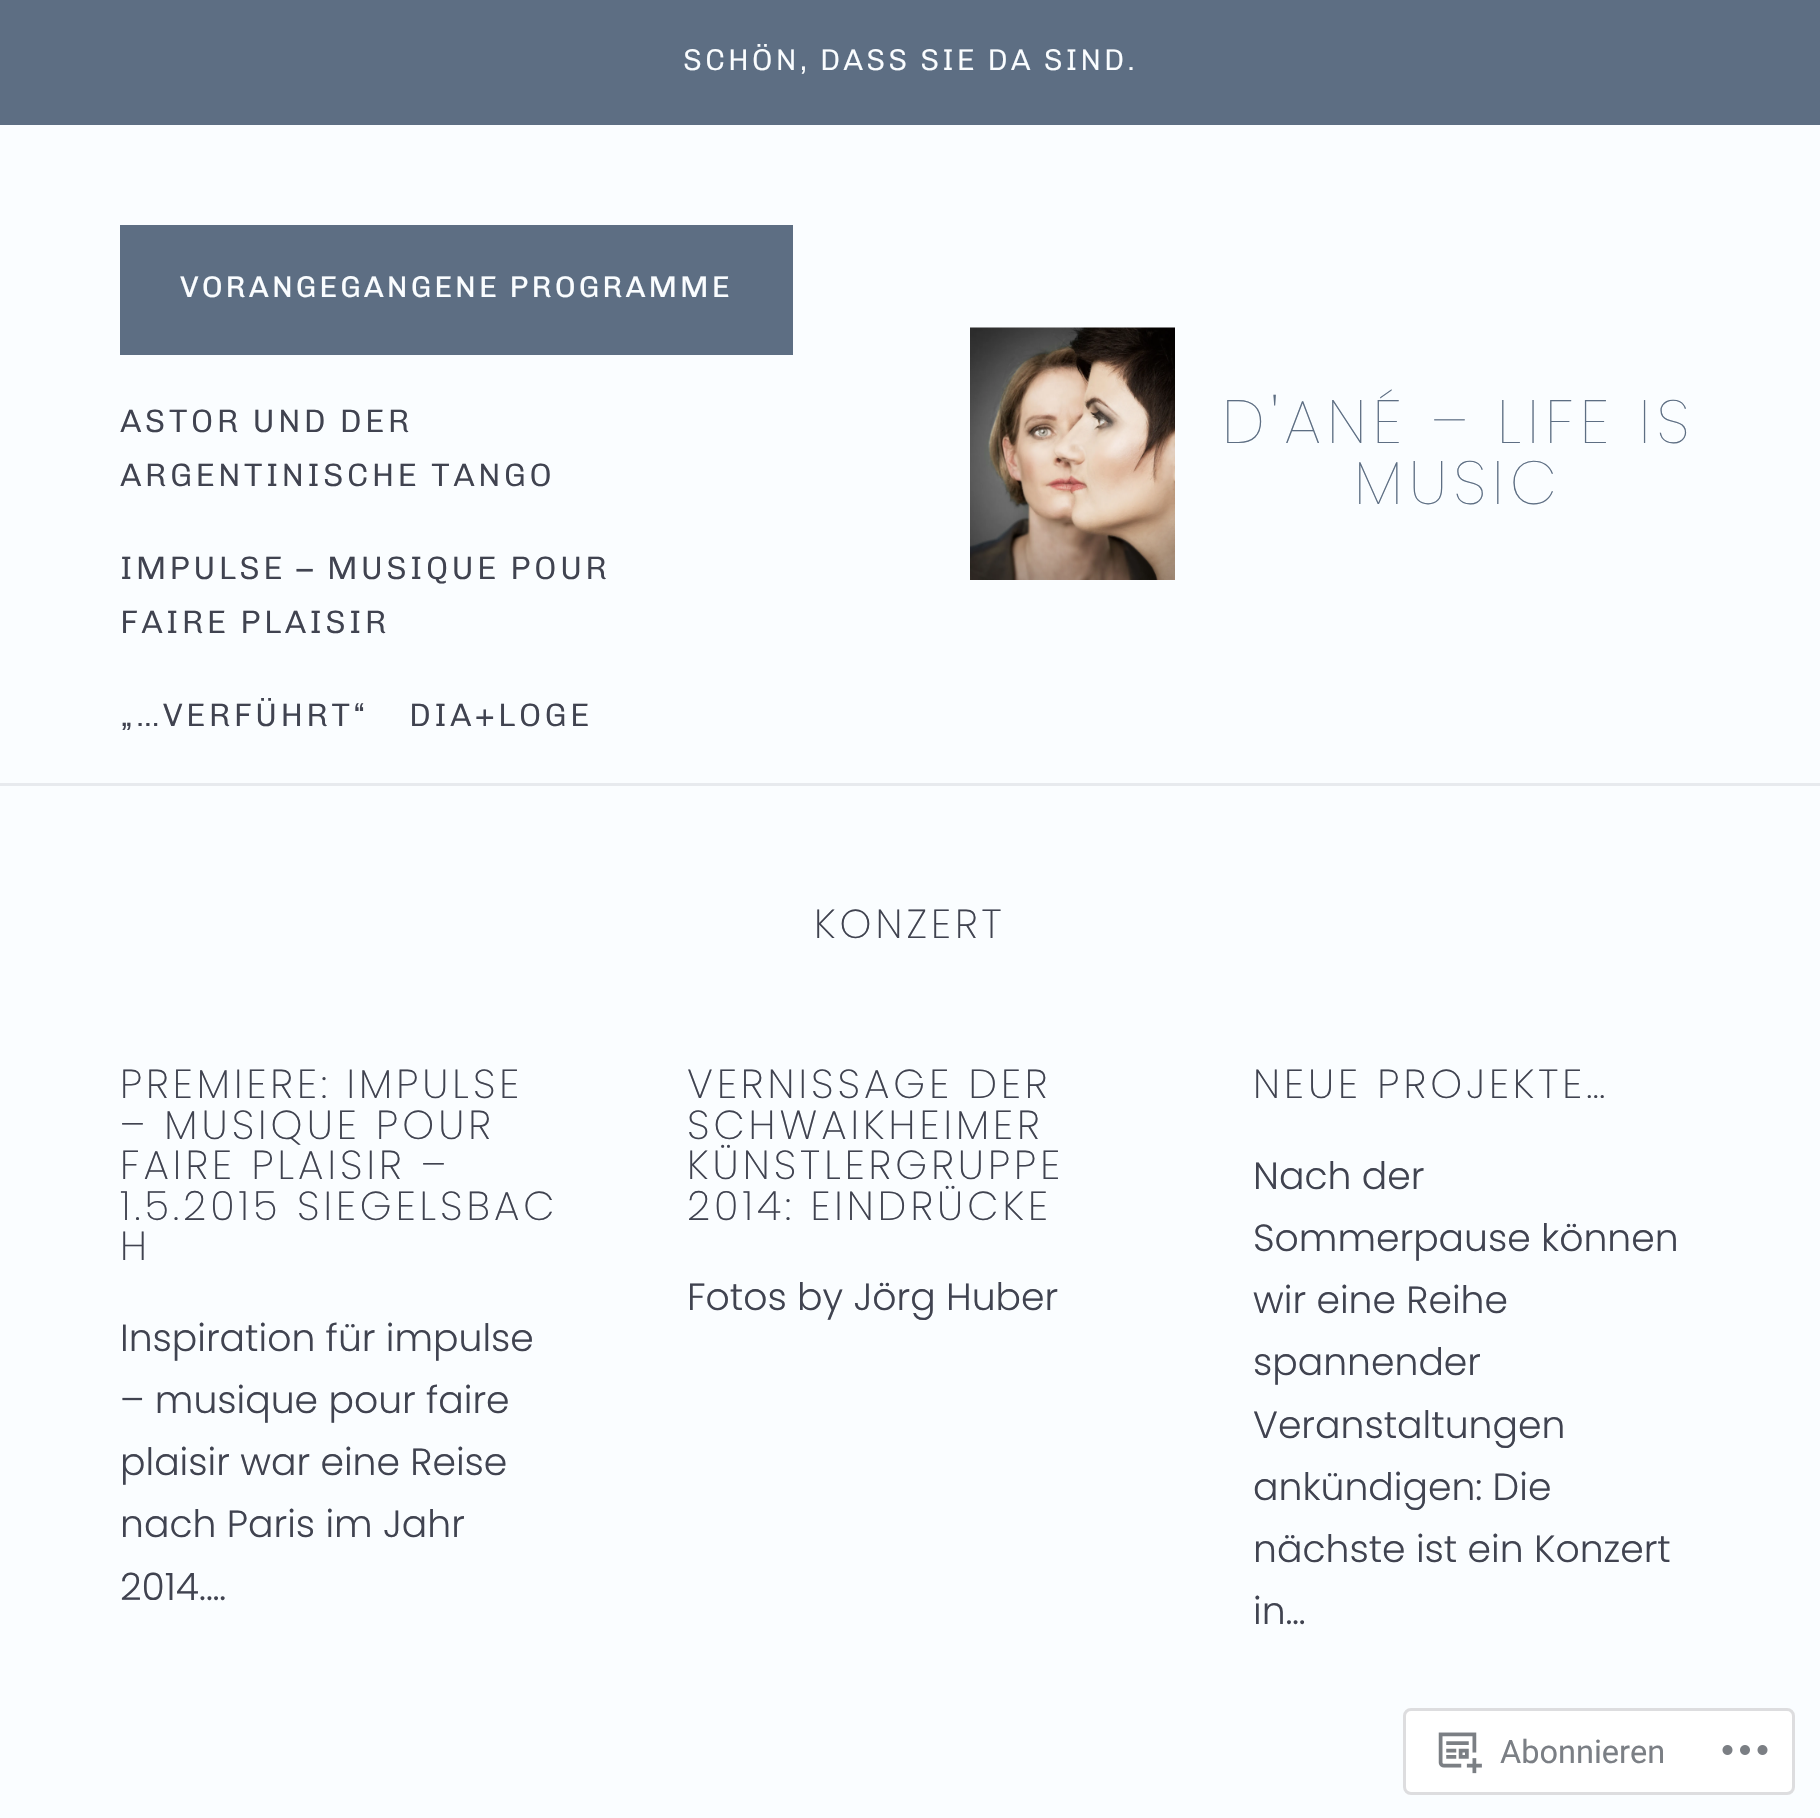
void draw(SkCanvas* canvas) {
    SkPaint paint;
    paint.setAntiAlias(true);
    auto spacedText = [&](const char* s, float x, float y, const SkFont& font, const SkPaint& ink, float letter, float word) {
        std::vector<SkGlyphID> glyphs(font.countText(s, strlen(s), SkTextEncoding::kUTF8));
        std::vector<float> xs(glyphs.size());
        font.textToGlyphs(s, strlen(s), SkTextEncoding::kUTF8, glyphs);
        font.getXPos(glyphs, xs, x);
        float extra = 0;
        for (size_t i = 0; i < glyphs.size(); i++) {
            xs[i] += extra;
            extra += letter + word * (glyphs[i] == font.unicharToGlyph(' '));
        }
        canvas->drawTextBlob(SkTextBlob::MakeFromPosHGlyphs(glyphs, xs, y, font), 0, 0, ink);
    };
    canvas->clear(0xFFFAFDFF);
    paint.setColor(0xFF5D6E83);
    canvas->drawRect(SkRect::MakeXYWH(0, 0, 1820, 125), paint);
    SkFont font1(fontMgr->matchFamilyStyle("Chivo", SkFontStyle(300, SkFontStyle::kNormal_Width, SkFontStyle::kUpright_Slant)), 30);
    font1.setSubpixel(true);
    paint.setColor(0xFFFAFDFF);
    spacedText("SCHÖN, DASS SIE DA SIND.", 683, 70, font1, paint, 3, 0);
    paint.setColor(0xFFE7EAEE);
    canvas->drawRect(SkRect::MakeXYWH(0, 783, 1820, 3), paint);
    paint.setColor(0xFF5D6E83);
    canvas->drawRect(SkRect::MakeXYWH(120, 225, 673, 130), paint);
    SkFont font2(fontMgr->matchFamilyStyle("Chivo", SkFontStyle::Normal()), 30);
    font2.setSubpixel(true);
    paint.setColor(0xFFFAFDFF);
    spacedText("VORANGEGANGENE PROGRAMME", 180, 297, font2, paint, 3, 0);
    SkFont font3(fontMgr->matchFamilyStyle("Chivo", SkFontStyle(300, SkFontStyle::kNormal_Width, SkFontStyle::kUpright_Slant)), 32.5f);
    font3.setSubpixel(true);
    paint.setColor(0xFF404350);
    spacedText("ASTOR UND DER", 120, 432, font3, paint, 3.25f, 0);
    spacedText("ARGENTINISCHE TANGO", 120, 486, font3, paint, 3.25f, 0);
    spacedText("IMPULSE – MUSIQUE POUR", 120, 579, font3, paint, 3.25f, 0);
    spacedText("FAIRE PLAISIR", 120, 633, font3, paint, 3.25f, 0);
    spacedText("„…VERFÜHRT“", 120, 726, font3, paint, 3.25f, 0);
    spacedText("DIA+LOGE", 409, 726, font3, paint, 3.25f, 0);
    canvas->drawImageRect(SkImages::DeferredFromEncodedData(SkData::MakeFromFileName("img1.png")), SkRect::MakeXYWH(970, 327, 205, 253), SkSamplingOptions());
    SkFont font4(fontMgr->matchFamilyStyle("Poppins", SkFontStyle(200, SkFontStyle::kNormal_Width, SkFontStyle::kUpright_Slant)), 61);
    font4.setSubpixel(true);
    paint.setColor(0xFF5D6E83);
    spacedText("D'ANÉ – LIFE IS", 1222, 443, font4, paint, 6.1f, 0);
    spacedText("MUSIC", 1354, 504, font4, paint, 6.1f, 0);
    SkFont font5(fontMgr->matchFamilyStyle("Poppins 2", SkFontStyle(200, SkFontStyle::kNormal_Width, SkFontStyle::kUpright_Slant)), 40.5f);
    font5.setSubpixel(true);
    paint.setColor(0xFF404350);
    spacedText("KONZERT", 814, 938, font5, paint, 4, 0);
    spacedText("PREMIERE: IMPULSE", 120, 1098, font5, paint, 4, 0);
    spacedText("– MUSIQUE POUR", 120, 1139, font5, paint, 4, 0);
    spacedText("FAIRE PLAISIR –", 120, 1179, font5, paint, 4, 0);
    spacedText("1.5.2015 SIEGELSBAC", 120, 1220, font5, paint, 4, 0);
    spacedText("H", 120, 1260, font5, paint, 4, 0);
    SkFont font6(fontMgr->matchFamilyStyle("Poppins", SkFontStyle(300, SkFontStyle::kNormal_Width, SkFontStyle::kUpright_Slant)), 37.75f);
    font6.setSubpixel(true);
    canvas->drawString("Inspiration für impulse", 120, 1351, font6, paint);
    canvas->drawString("– musique pour faire", 120, 1413, font6, paint);
    canvas->drawString("plaisir war eine Reise", 120, 1475, font6, paint);
    canvas->drawString("nach Paris im Jahr", 120, 1537, font6, paint);
    canvas->drawString("2014.…", 120, 1600, font6, paint);
    spacedText("VERNISSAGE DER", 687, 1098, font5, paint, 4, 0);
    spacedText("SCHWAIKHEIMER", 687, 1139, font5, paint, 4, 0);
    spacedText("KÜNSTLERGRUPPE", 687, 1179, font5, paint, 4, 0);
    spacedText("2014: EINDRÜCKE", 687, 1220, font5, paint, 4, 0);
    canvas->drawString("Fotos by Jörg Huber", 687, 1310, font6, paint);
    spacedText("NEUE PROJEKTE…", 1253, 1098, font5, paint, 4, 0);
    canvas->drawString("Nach der", 1253, 1189, font6, paint);
    canvas->drawString("Sommerpause können", 1253, 1251, font6, paint);
    canvas->drawString("wir eine Reihe", 1253, 1313, font6, paint);
    canvas->drawString("spannender", 1253, 1375, font6, paint);
    canvas->drawString("Veranstaltungen", 1253, 1438, font6, paint);
    canvas->drawString("ankündigen: Die", 1253, 1500, font6, paint);
    canvas->drawString("nächste ist ein Konzert", 1253, 1562, font6, paint);
    canvas->drawString("in…", 1253, 1624, font6, paint);
    paint.setColor(0xFFFFFFFF);
    canvas->drawRoundRect(SkRect::MakeXYWH(1404.5f, 1709.5f, 389, 84), 6.5f, 6.5f, paint);
    paint.setStyle(SkPaint::kStroke_Style);
    paint.setStrokeWidth(3);
    paint.setColor(0xFFDDDDDF);
    canvas->drawRoundRect(SkRect::MakeXYWH(1404.5f, 1709.5f, 389, 84), 6.5f, 6.5f, paint);
    canvas->drawImageRect(SkImages::DeferredFromEncodedData(SkData::MakeFromFileName("img2.png")), SkRect::MakeXYWH(1438, 1732, 44, 42), SkSamplingOptions());
    SkFont font7(fontMgr->matchFamilyStyle("Roboto", SkFontStyle::Normal()), 32.5f);
    font7.setSubpixel(true);
    paint.setStyle(SkPaint::kFill_Style);
    paint.setColor(0xFF7B7F85);
    canvas->drawString("Abonnieren", 1500, 1763, font7, paint);
    canvas->drawImageRect(SkImages::DeferredFromEncodedData(SkData::MakeFromFileName("img3.png")), SkRect::MakeXYWH(1722, 1745, 46, 10), SkSamplingOptions());
}
